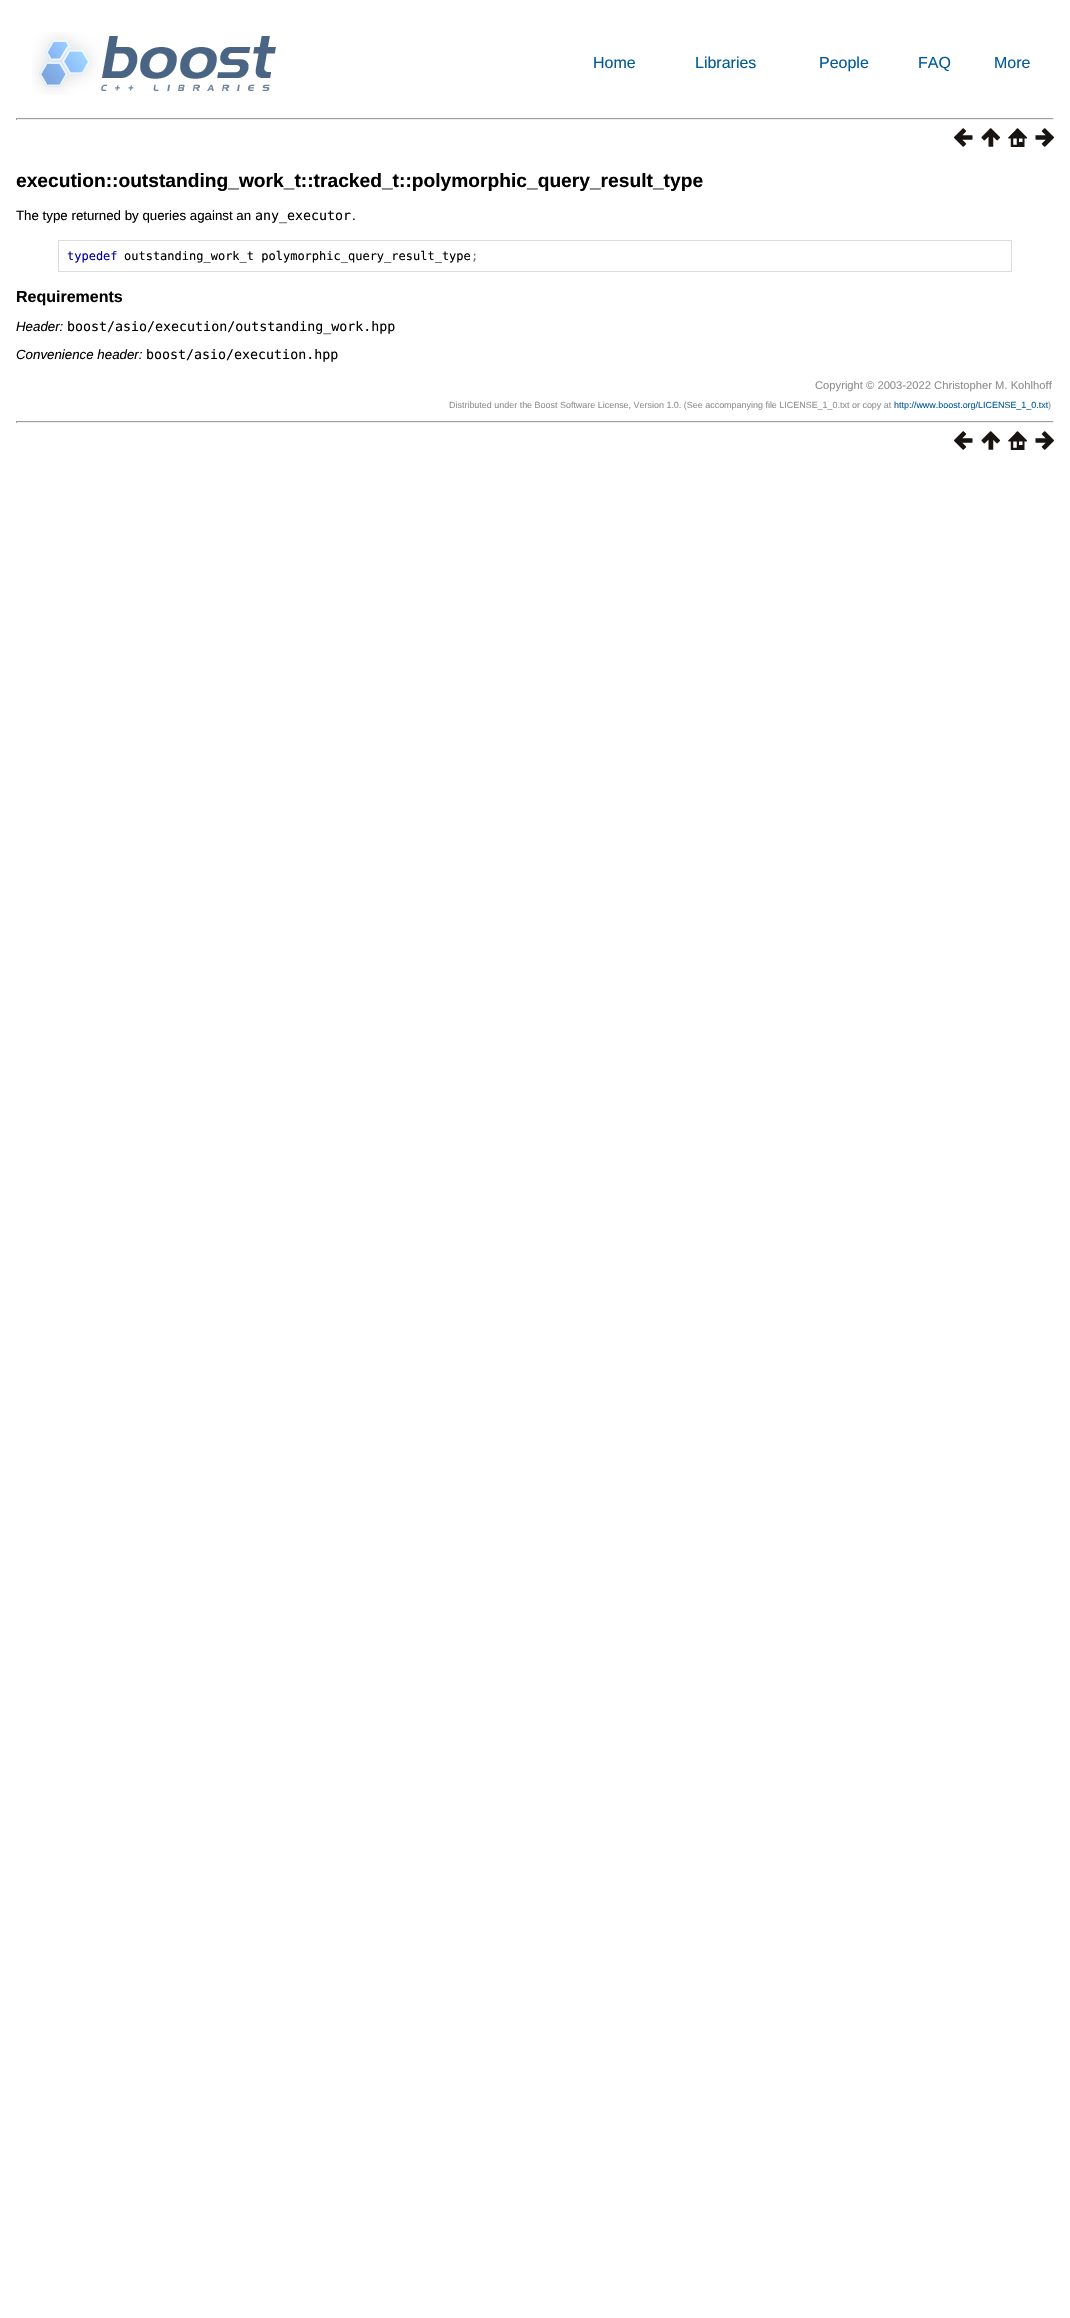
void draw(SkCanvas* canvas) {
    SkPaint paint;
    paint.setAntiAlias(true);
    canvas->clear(0xFFFFFFFF);
    canvas->drawImageRect(SkImages::DeferredFromEncodedData(SkData::MakeFromFileName("img1.png")), SkRect::MakeXYWH(32, 32, 244, 63), SkSamplingOptions());
    SkFont font1(fontMgr->matchFamilyStyle("Liberation Sans", SkFontStyle::Normal()), 16);
    font1.setSubpixel(true);
    paint.setColor(0xFF005A9C);
    canvas->drawString("Home", 593, 68, font1, paint);
    canvas->drawString("Libraries", 695, 68, font1, paint);
    canvas->drawString("People", 819, 68, font1, paint);
    canvas->drawString("FAQ", 918, 68, font1, paint);
    canvas->drawString("More", 994, 68, font1, paint);
    paint.setColor(0xFF9F9F9F);
    canvas->drawRect(SkRect::MakeXYWH(16, 118, 1038, 1), paint);
    paint.setColor(0xFFEEEEEE);
    canvas->drawRect(SkRect::MakeXYWH(1053, 118, 1, 2), paint);
    canvas->drawRect(SkRect::MakeXYWH(16, 119, 1038, 1), paint);
    paint.setColor(0xFF9F9F9F);
    canvas->drawRect(SkRect::MakeXYWH(16, 118, 1, 2), paint);
    canvas->drawImageRect(SkImages::DeferredFromEncodedData(SkData::MakeFromFileName("img2.png")), SkRect::MakeXYWH(954, 128, 19, 19), SkSamplingOptions());
    canvas->drawImageRect(SkImages::DeferredFromEncodedData(SkData::MakeFromFileName("img3.png")), SkRect::MakeXYWH(981, 128, 19, 19), SkSamplingOptions());
    canvas->drawImageRect(SkImages::DeferredFromEncodedData(SkData::MakeFromFileName("img4.png")), SkRect::MakeXYWH(1008, 128, 19, 19), SkSamplingOptions());
    canvas->drawImageRect(SkImages::DeferredFromEncodedData(SkData::MakeFromFileName("img5.png")), SkRect::MakeXYWH(1035, 128, 19, 19), SkSamplingOptions());
    SkFont font2(fontMgr->matchFamilyStyle("Liberation Sans", SkFontStyle::Bold()), 19.2f);
    font2.setSubpixel(true);
    paint.setColor(0xFF000000);
    canvas->drawString("execution::outstanding_work_t::tracked_t::polymorphic_query_result_type", 16, 187, font2, paint);
    SkFont font3(fontMgr->matchFamilyStyle("Liberation Sans", SkFontStyle::Normal()), 13.3f);
    font3.setSubpixel(true);
    canvas->drawString("The type returned by queries against an", 16, 220, font3, paint);
    SkFont font4(fontMgr->matchFamilyStyle("DejaVu Sans Mono", SkFontStyle::Normal()), 13.3f);
    font4.setSubpixel(true);
    canvas->drawString("any_executor", 255, 220, font4, paint);
    canvas->drawString(".", 352, 220, font3, paint);
    paint.setStyle(SkPaint::kStroke_Style);
    paint.setStrokeWidth(1);
    paint.setColor(0xFFDCDCDC);
    canvas->drawRect(SkRect::MakeXYWH(58.5f, 240.5f, 953, 31), paint);
    SkFont font5(fontMgr->matchFamilyStyle("DejaVu Sans Mono", SkFontStyle::Normal()), 12);
    font5.setSubpixel(true);
    paint.setStyle(SkPaint::kFill_Style);
    paint.setColor(0xFF0000AA);
    canvas->drawString("typedef", 67, 260, font5, paint);
    paint.setColor(0xFF000000);
    canvas->drawString("outstanding_work_t polymorphic_query_result_type", 124, 260, font5, paint);
    paint.setColor(0xFF707070);
    canvas->drawString(";", 471, 260, font5, paint);
    SkFont font6(fontMgr->matchFamilyStyle("Liberation Sans", SkFontStyle::Bold()), 16);
    font6.setSubpixel(true);
    paint.setColor(0xFF000000);
    canvas->drawString("Requirements", 16, 302, font6, paint);
    SkFont font7(fontMgr->matchFamilyStyle("Liberation Sans", SkFontStyle::Italic()), 13.3f);
    font7.setSubpixel(true);
    canvas->drawString("Header:", 16, 331, font7, paint);
    canvas->drawString("boost/asio/execution/outstanding_work.hpp", 67, 331, font4, paint);
    canvas->drawString("Convenience header:", 16, 359, font7, paint);
    canvas->drawString("boost/asio/execution.hpp", 146, 359, font4, paint);
    SkFont font8(fontMgr->matchFamilyStyle("Liberation Sans", SkFontStyle::Normal()), 11.2f);
    font8.setSubpixel(true);
    paint.setColor(0xFF8F8F8F);
    canvas->drawString("Copyright © 2003-2022 Christopher M. Kohlhoff", 815, 389, font8, paint);
    SkFont font9(fontMgr->matchFamilyStyle("Liberation Sans", SkFontStyle::Normal()), 8.95f);
    font9.setSubpixel(true);
    canvas->drawString("Distributed under the Boost Software License, Version 1.0. (See accompanying file LICENSE_1_0.txt or copy at", 449, 408, font9, paint);
    paint.setColor(0xFF005A9C);
    canvas->drawString("http://www.boost.org/LICENSE_1_0.txt", 894, 408, font9, paint);
    paint.setColor(0xFF8F8F8F);
    canvas->drawString(")", 1048, 408, font9, paint);
    paint.setColor(0xFF9F9F9F);
    canvas->drawRect(SkRect::MakeXYWH(16, 421, 1038, 1), paint);
    paint.setColor(0xFFEEEEEE);
    canvas->drawRect(SkRect::MakeXYWH(1053, 421, 1, 2), paint);
    canvas->drawRect(SkRect::MakeXYWH(16, 422, 1038, 1), paint);
    paint.setColor(0xFF9F9F9F);
    canvas->drawRect(SkRect::MakeXYWH(16, 421, 1, 2), paint);
    canvas->drawImageRect(SkImages::DeferredFromEncodedData(SkData::MakeFromFileName("img2.png")), SkRect::MakeXYWH(954, 431, 19, 19), SkSamplingOptions());
    canvas->drawImageRect(SkImages::DeferredFromEncodedData(SkData::MakeFromFileName("img3.png")), SkRect::MakeXYWH(981, 431, 19, 19), SkSamplingOptions());
    canvas->drawImageRect(SkImages::DeferredFromEncodedData(SkData::MakeFromFileName("img4.png")), SkRect::MakeXYWH(1008, 431, 19, 19), SkSamplingOptions());
    canvas->drawImageRect(SkImages::DeferredFromEncodedData(SkData::MakeFromFileName("img5.png")), SkRect::MakeXYWH(1035, 431, 19, 19), SkSamplingOptions());
}
